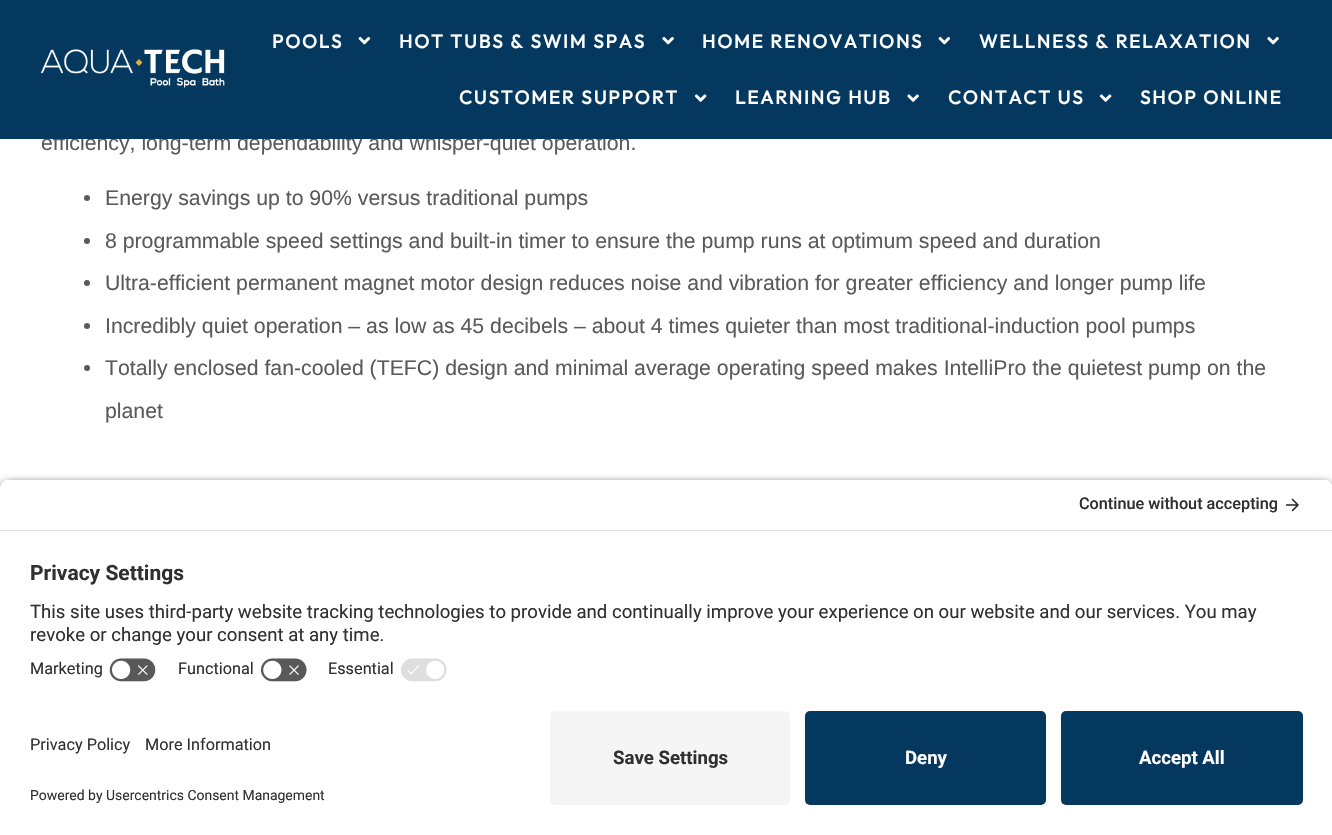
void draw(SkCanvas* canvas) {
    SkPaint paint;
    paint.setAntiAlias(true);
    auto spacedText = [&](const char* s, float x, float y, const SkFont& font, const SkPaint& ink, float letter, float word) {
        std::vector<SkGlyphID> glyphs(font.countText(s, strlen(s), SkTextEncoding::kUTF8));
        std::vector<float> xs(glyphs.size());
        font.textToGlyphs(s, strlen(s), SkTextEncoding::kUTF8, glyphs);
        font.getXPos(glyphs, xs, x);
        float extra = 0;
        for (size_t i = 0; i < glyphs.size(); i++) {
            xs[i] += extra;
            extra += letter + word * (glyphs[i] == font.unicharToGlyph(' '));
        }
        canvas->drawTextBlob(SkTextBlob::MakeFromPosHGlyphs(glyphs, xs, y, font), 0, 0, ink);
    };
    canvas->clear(0xFFFFFFFF);
    SkFont font1(fontMgr->matchFamilyStyle("Liberation Sans", SkFontStyle::Normal()), 21.25f);
    font1.setSubpixel(true);
    paint.setColor(0xFF5A5A5A);
    canvas->drawString("efficiency, long-term dependability and whisper-quiet operation.", 41, 150, font1, paint);
    paint.setColor(0xFF05385E);
    canvas->drawRect(SkRect::MakeXYWH(0, 0, 1332, 139), paint);
    canvas->drawImageRect(SkImages::DeferredFromEncodedData(SkData::MakeFromFileName("img1.png")), SkRect::MakeXYWH(40, 49, 185, 39), SkSamplingOptions());
    SkFont font2(fontMgr->matchFamilyStyle("Outfit", SkFontStyle::Bold()), 18.75f);
    font2.setSubpixel(true);
    paint.setColor(0xFFFFFFFF);
    spacedText("POOLS", 272, 48, font2, paint, 1.9f, 0);
    canvas->drawImageRect(SkImages::DeferredFromEncodedData(SkData::MakeFromFileName("img2.png")), SkRect::MakeXYWH(358, 36, 13, 9), SkSamplingOptions());
    spacedText("HOT TUBS & SWIM SPAS", 399, 48, font2, paint, 1.9f, 0);
    canvas->drawImageRect(SkImages::DeferredFromEncodedData(SkData::MakeFromFileName("img3.png")), SkRect::MakeXYWH(662, 36, 12, 9), SkSamplingOptions());
    spacedText("HOME RENOVATIONS", 702, 48, font2, paint, 1.9f, 0);
    canvas->drawImageRect(SkImages::DeferredFromEncodedData(SkData::MakeFromFileName("img2.png")), SkRect::MakeXYWH(938, 36, 13, 9), SkSamplingOptions());
    spacedText("WELLNESS & RELAXATION", 979, 48, font2, paint, 1.9f, 0);
    canvas->drawImageRect(SkImages::DeferredFromEncodedData(SkData::MakeFromFileName("img3.png")), SkRect::MakeXYWH(1267, 36, 12, 9), SkSamplingOptions());
    spacedText("CUSTOMER SUPPORT", 459, 104, font2, paint, 1.9f, 0);
    canvas->drawImageRect(SkImages::DeferredFromEncodedData(SkData::MakeFromFileName("img4.png")), SkRect::MakeXYWH(694, 94, 13, 8), SkSamplingOptions());
    spacedText("LEARNING HUB", 735, 104, font2, paint, 1.9f, 0);
    canvas->drawImageRect(SkImages::DeferredFromEncodedData(SkData::MakeFromFileName("img5.png")), SkRect::MakeXYWH(907, 94, 12, 8), SkSamplingOptions());
    spacedText("CONTACT US", 948, 104, font2, paint, 1.9f, 0);
    canvas->drawImageRect(SkImages::DeferredFromEncodedData(SkData::MakeFromFileName("img4.png")), SkRect::MakeXYWH(1099, 94, 13, 8), SkSamplingOptions());
    spacedText("SHOP ONLINE", 1140, 104, font2, paint, 1.9f, 0);
    paint.setColor(0xFF5A5A5A);
    canvas->drawCircle(87, 198, 3, paint);
    canvas->drawString("Energy savings up to 90% versus traditional pumps", 105, 205, font1, paint);
    canvas->drawCircle(87, 241, 3, paint);
    canvas->drawString("8 programmable speed settings and built-in timer to ensure the pump runs at optimum speed and duration", 105, 248, font1, paint);
    canvas->drawCircle(87, 283, 3, paint);
    canvas->drawString("Ultra-efficient permanent magnet motor design reduces noise and vibration for greater efficiency and longer pump life", 105, 290, font1, paint);
    canvas->drawCircle(87, 326, 3, paint);
    canvas->drawString("Incredibly quiet operation – as low as 45 decibels – about 4 times quieter than most traditional-induction pool pumps", 105, 333, font1, paint);
    canvas->drawCircle(87, 368, 3, paint);
    canvas->drawString("Totally enclosed fan-cooled (TEFC) design and minimal average operating speed makes IntelliPro the quietest pump on the", 105, 375, font1, paint);
    canvas->drawString("planet", 105, 418, font1, paint);
    paint.setColor(0xCC000000);
    paint.setMaskFilter(SkMaskFilter::MakeBlur(kNormal_SkBlurStyle, 4.5f));
    canvas->drawRoundRect(SkRect::MakeXYWH(0, 483, 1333, 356), 10, 10, paint);
    paint.setMaskFilter(nullptr);
    canvas->save();
    canvas->clipPath(SkPathBuilder().moveTo(10, 479).lineTo(1323, 479).cubicTo(1328.5f, 479, 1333, 483.5f, 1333, 489).lineTo(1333, 701).lineTo(0, 701).lineTo(0, 489).cubicTo(0, 483.5f, 4.5f, 479, 10, 479).close().detach(), true);
    paint.setColor(0xFFFFFFFF);
    canvas->drawRect(SkRect::MakeXYWH(0, 480, 1332, 50), paint);
    canvas->restore();
    paint.setColor(0xFFDEDEDE);
    canvas->drawRect(SkRect::MakeXYWH(0, 530, 1332, 1), paint);
    SkFont font3(fontMgr->matchFamilyStyle("Roboto", SkFontStyle(500, SkFontStyle::kNormal_Width, SkFontStyle::kUpright_Slant)), 16.25f);
    font3.setSubpixel(true);
    paint.setColor(0xFF303030);
    canvas->drawString("Continue without accepting", 1079, 509, font3, paint);
    canvas->drawImageRect(SkImages::DeferredFromEncodedData(SkData::MakeFromFileName("img6.png")), SkRect::MakeXYWH(1285, 498, 14, 14), SkSamplingOptions());
    paint.setColor(0xFFFFFFFF);
    canvas->drawRect(SkRect::MakeXYWH(0, 531, 1332, 304), paint);
    SkFont font4(fontMgr->matchFamilyStyle("Roboto", SkFontStyle::Bold()), 21);
    font4.setSubpixel(true);
    paint.setColor(0xFF303030);
    canvas->drawString("Privacy Settings", 30, 580, font4, paint);
    SkFont font5(fontMgr->matchFamilyStyle("Roboto", SkFontStyle::Normal()), 18.6f);
    font5.setSubpixel(true);
    canvas->drawString("This site uses third-party website tracking technologies to provide and continually improve your experience on our website and our services. You may", 30, 618, font5, paint);
    canvas->drawString("revoke or change your consent at any time.", 30, 641, font5, paint);
    SkFont font6(fontMgr->matchFamilyStyle("Roboto", SkFontStyle::Normal()), 16.25f);
    font6.setSubpixel(true);
    canvas->drawString("Marketing", 30, 674, font6, paint);
    canvas->drawImageRect(SkImages::DeferredFromEncodedData(SkData::MakeFromFileName("img7.png")), SkRect::MakeXYWH(109, 658, 47, 24), SkSamplingOptions());
    canvas->drawString("Functional", 178, 674, font6, paint);
    canvas->drawImageRect(SkImages::DeferredFromEncodedData(SkData::MakeFromFileName("img8.png")), SkRect::MakeXYWH(260, 657, 48, 25), SkSamplingOptions());
    canvas->drawString("Essential", 328, 674, font6, paint);
    canvas->drawImageRect(SkImages::DeferredFromEncodedData(SkData::MakeFromFileName("img9.png")), SkRect::MakeXYWH(401, 658, 46, 24), SkSamplingOptions());
    canvas->drawString("Privacy Policy", 30, 750, font6, paint);
    canvas->drawString("More Information", 145, 750, font6, paint);
    SkFont font7(fontMgr->matchFamilyStyle("Roboto", SkFontStyle::Normal()), 13.95f);
    font7.setSubpixel(true);
    canvas->drawString("Powered by Usercentrics Consent Management", 30, 800, font7, paint);
    paint.setColor(0xFFF5F5F5);
    canvas->drawRoundRect(SkRect::MakeXYWH(550, 711, 240, 94), 5, 5, paint);
    SkFont font8(fontMgr->matchFamilyStyle("Roboto", SkFontStyle::Bold()), 18.6f);
    font8.setSubpixel(true);
    paint.setColor(0xFF303030);
    canvas->drawString("Save Settings", 613, 764, font8, paint);
    paint.setColor(0xFF05385E);
    canvas->drawRoundRect(SkRect::MakeXYWH(805, 711, 241, 94), 5, 5, paint);
    paint.setColor(0xFFFFFFFF);
    canvas->drawString("Deny", 905, 764, font8, paint);
    paint.setColor(0xFF05385E);
    canvas->drawRoundRect(SkRect::MakeXYWH(1061, 711, 242, 94), 5, 5, paint);
    paint.setColor(0xFFFFFFFF);
    canvas->drawString("Accept All", 1139, 764, font8, paint);
}
